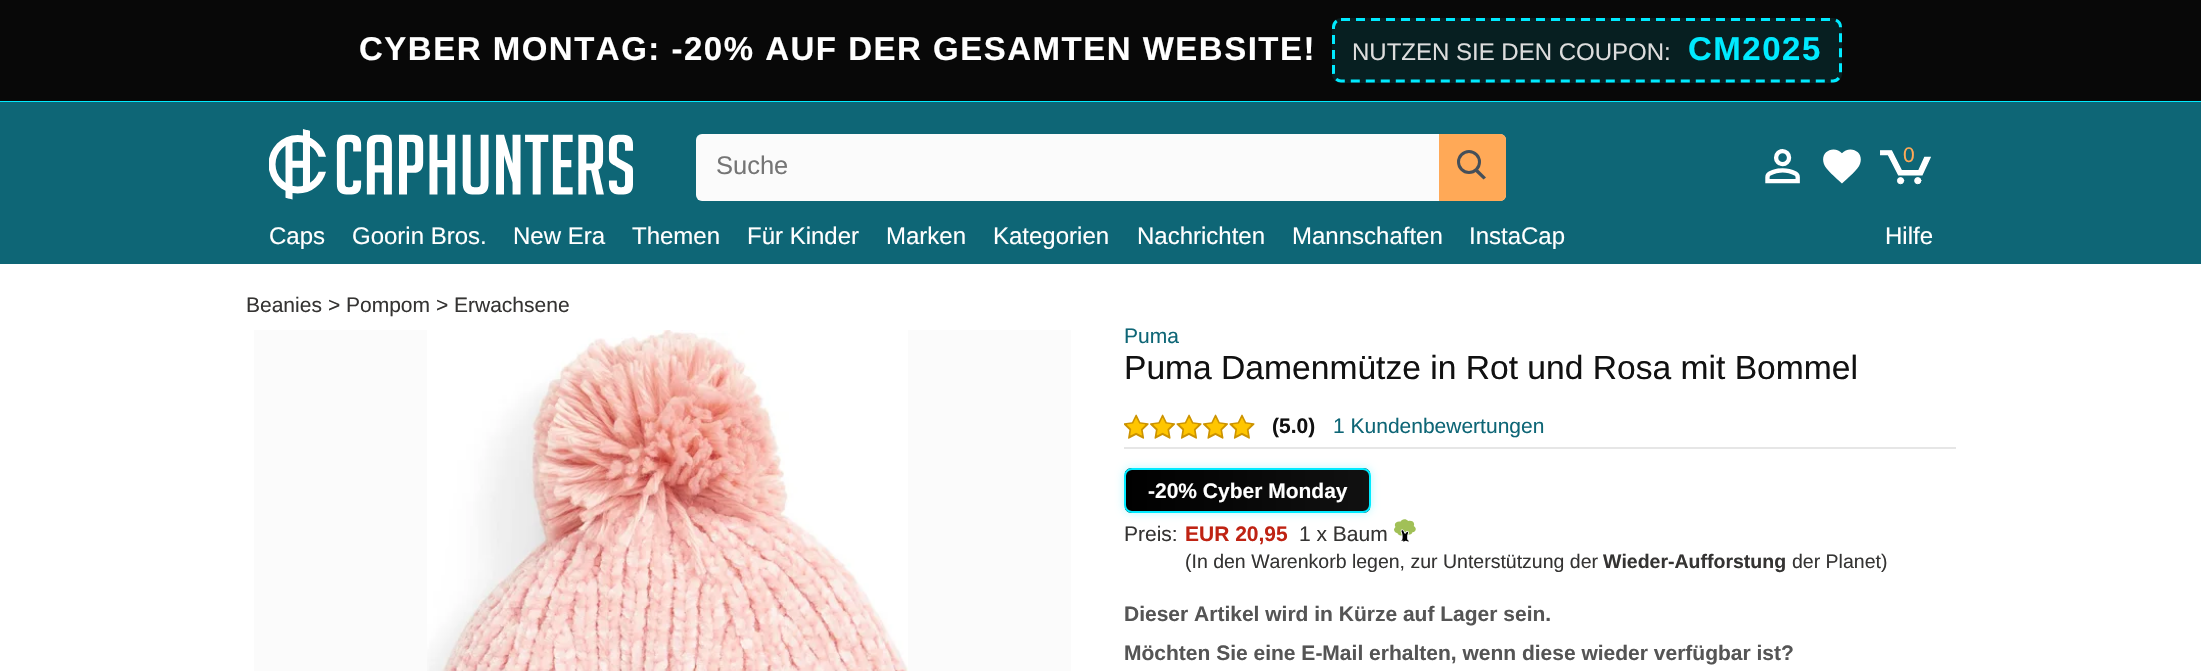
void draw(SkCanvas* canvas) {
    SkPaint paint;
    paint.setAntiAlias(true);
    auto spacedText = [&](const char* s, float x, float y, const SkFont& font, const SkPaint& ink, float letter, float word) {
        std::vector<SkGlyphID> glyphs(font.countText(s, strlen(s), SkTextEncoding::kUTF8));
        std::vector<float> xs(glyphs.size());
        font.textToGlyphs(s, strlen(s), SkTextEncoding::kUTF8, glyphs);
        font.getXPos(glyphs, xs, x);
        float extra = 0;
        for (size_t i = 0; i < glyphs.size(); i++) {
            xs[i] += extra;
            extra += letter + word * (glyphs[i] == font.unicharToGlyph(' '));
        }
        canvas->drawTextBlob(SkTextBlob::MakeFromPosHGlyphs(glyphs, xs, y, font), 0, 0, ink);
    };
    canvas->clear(0xFFFFFFFF);
    paint.setColor(0xFF080808);
    canvas->drawRect(SkRect::MakeXYWH(0, 0, 2201, 101), paint);
    paint.setColor(0xFF00EAFF);
    canvas->drawRect(SkRect::MakeXYWH(0, 101, 2201, 1), paint);
    SkFont font1(fontMgr->matchFamilyStyle("Liberation Sans", SkFontStyle::Bold()), 33);
    font1.setSubpixel(true);
    paint.setColor(0xFFFFFFFF);
    spacedText("CYBER MONTAG: -20% AUF DER GESAMTEN WEBSITE!", 359, 60, font1, paint, 1.5f, 0);
    paint.setColor(0xFF071F21);
    canvas->drawRoundRect(SkRect::MakeXYWH(1332, 18, 510, 65), 9, 9, paint);
    paint.setStyle(SkPaint::kStroke_Style);
    paint.setStrokeWidth(3);
    paint.setColor(0xFF00EAFF);
    paint.setPathEffect(SkDashPathEffect::Make({{9, 6}}, 0));
    canvas->drawPath(SkPathBuilder().moveTo(1341, 19.5f).lineTo(1833, 19.5f).cubicTo(1837, 19.5f, 1840.5f, 23, 1840.5f, 27).lineTo(1840.5f, 73.5f).cubicTo(1840.5f, 77.5f, 1837, 81, 1833, 81).lineTo(1341, 81).cubicTo(1337, 81, 1333.5f, 77.5f, 1333.5f, 73.5f).lineTo(1333.5f, 27).cubicTo(1333.5f, 23, 1337, 19.5f, 1341, 19.5f).close().detach(), paint);
    paint.setPathEffect(nullptr);
    SkFont font2(fontMgr->matchFamilyStyle("Liberation Sans", SkFontStyle::Normal()), 24);
    font2.setSubpixel(true);
    paint.setStyle(SkPaint::kFill_Style);
    paint.setColor(0xFFDDDDDD);
    canvas->drawString("NUTZEN SIE DEN COUPON:", 1352, 60, font2, paint);
    paint.setColor(0xFF00EAFF);
    spacedText("CM2025", 1688, 60, font1, paint, 1.5f, 0);
    paint.setColor(0xFF0E6676);
    canvas->drawRect(SkRect::MakeXYWH(0, 102, 2201, 162), paint);
    canvas->drawImageRect(SkImages::DeferredFromEncodedData(SkData::MakeFromFileName("img1.png")), SkRect::MakeXYWH(269, 129, 364, 71), SkSamplingOptions());
    paint.setColor(0xFFFBFBFB);
    canvas->drawRoundRect(SkRect::MakeXYWH(696, 134, 810, 67), 6, 6, paint);
    SkFont font3(fontMgr->matchFamilyStyle("Liberation Sans", SkFontStyle::Normal()), 25.5f);
    font3.setSubpixel(true);
    paint.setColor(0xFF757575);
    canvas->drawString("Suche", 716, 174, font3, paint);
    paint.setColor(0xFFFFA957);
    canvas->drawPath(SkPathBuilder().moveTo(1439, 134).lineTo(1500, 134).cubicTo(1503.5f, 134, 1506, 136.5f, 1506, 140).lineTo(1506, 195).cubicTo(1506, 198.5f, 1503.5f, 201, 1500, 201).lineTo(1439, 201).close().detach(), paint);
    paint.setStyle(SkPaint::kStroke_Style);
    paint.setColor(0xFF454F59);
    canvas->drawCircle(1469, 162, 10.5f, paint);
    paint.setStyle(SkPaint::kFill_Style);
    canvas->drawPath(SkPathBuilder().moveTo(1477.5f, 169).lineTo(1486, 177.5f).lineTo(1483.5f, 179.5f).lineTo(1475, 171.5f).close().detach(), paint);
    canvas->drawImageRect(SkImages::DeferredFromEncodedData(SkData::MakeFromFileName("img2.png")), SkRect::MakeXYWH(1765, 149, 35, 35), SkSamplingOptions());
    canvas->drawImageRect(SkImages::DeferredFromEncodedData(SkData::MakeFromFileName("img3.png")), SkRect::MakeXYWH(1823, 149, 38, 35), SkSamplingOptions());
    canvas->drawImageRect(SkImages::DeferredFromEncodedData(SkData::MakeFromFileName("img4.png")), SkRect::MakeXYWH(1880, 150, 51, 35), SkSamplingOptions());
    SkFont font4(fontMgr->matchFamilyStyle("Liberation Sans", SkFontStyle::Normal()), 21);
    font4.setSubpixel(true);
    paint.setColor(0xFFFFA957);
    canvas->drawString("0", 1903, 162, font4, paint);
    paint.setColor(0xFFFFFFFF);
    canvas->drawString("Caps", 269, 244, font2, paint);
    canvas->drawString("Goorin Bros.", 352, 244, font2, paint);
    canvas->drawString("New Era", 513, 244, font2, paint);
    canvas->drawString("Themen", 632, 244, font2, paint);
    canvas->drawString("Für Kinder", 747, 244, font2, paint);
    canvas->drawString("Marken", 886, 244, font2, paint);
    canvas->drawString("Kategorien", 993, 244, font2, paint);
    canvas->drawString("Nachrichten", 1137, 244, font2, paint);
    canvas->drawString("Mannschaften", 1292, 244, font2, paint);
    canvas->drawString("InstaCap", 1469, 244, font2, paint);
    canvas->drawString("Hilfe", 1885, 244, font2, paint);
    paint.setColor(0xFF353433);
    canvas->drawString("Beanies", 246, 312, font4, paint);
    canvas->drawString(">", 328, 312, font4, paint);
    canvas->drawString("Pompom", 346, 312, font4, paint);
    canvas->drawString(">", 436, 312, font4, paint);
    canvas->drawString("Erwachsene", 454, 312, font4, paint);
    paint.setColor(0xFFFBFBFB);
    canvas->drawRect(SkRect::MakeXYWH(254, 330, 817, 341), paint);
    canvas->drawImageRect(SkImages::DeferredFromEncodedData(SkData::MakeFromFileName("img5.png")), SkRect::MakeXYWH(427, 330, 481, 341), SkSamplingOptions());
    paint.setColor(0xFF0E6676);
    canvas->drawString("Puma", 1124, 343, font4, paint);
    SkFont font5(fontMgr->matchFamilyStyle("Liberation Sans", SkFontStyle::Normal()), 33.6f);
    font5.setSubpixel(true);
    paint.setColor(0xFF111111);
    canvas->drawString("Puma Damenmütze in Rot und Rosa mit Bommel", 1124, 379, font5, paint);
    canvas->drawImageRect(SkImages::DeferredFromEncodedData(SkData::MakeFromFileName("img6.png")), SkRect::MakeXYWH(1124, 414, 131, 25), SkSamplingOptions());
    SkFont font6(fontMgr->matchFamilyStyle("Liberation Sans", SkFontStyle::Bold()), 21);
    font6.setSubpixel(true);
    canvas->drawString("(5.0)", 1272, 433, font6, paint);
    paint.setColor(0xFF0E6676);
    canvas->drawString("1 Kundenbewertungen", 1333, 433, font4, paint);
    paint.setColor(0xFFE6E6E6);
    canvas->drawRect(SkRect::MakeXYWH(1124, 447, 832, 2), paint);
    paint.setColor(0x4D00EAFF);
    paint.setMaskFilter(SkMaskFilter::MakeBlur(kNormal_SkBlurStyle, 4));
    canvas->drawRoundRect(SkRect::MakeXYWH(1124, 468, 247, 45), 8, 8, paint);
    paint.setMaskFilter(nullptr);
    canvas->save();
    canvas->clipPath(SkPathBuilder().moveTo(1132, 468).lineTo(1363, 468).cubicTo(1367.5f, 468, 1371, 471.5f, 1371, 476).lineTo(1371, 505).cubicTo(1371, 509.5f, 1367.5f, 513, 1363, 513).lineTo(1132, 513).cubicTo(1127.5f, 513, 1124, 509.5f, 1124, 505).lineTo(1124, 476).cubicTo(1124, 471.5f, 1127.5f, 468, 1132, 468).close().detach(), true);
    {
        const SkColor colors[] = {0xFF000000, 0xFF111111};
        const float stops[] = {0, 1};
        const SkPoint ends[] = {{1125, 491}, {1370, 491}};
        paint.setShader(SkGradientShader::MakeLinear(ends, colors, stops, 2, SkTileMode::kClamp));
        paint.setAlpha(255);
    }
    canvas->drawRect(SkRect::MakeXYWH(1125, 468, 245, 45), paint);
    canvas->restore();
    paint.setStyle(SkPaint::kStroke_Style);
    paint.setStrokeWidth(2);
    paint.setShader(nullptr);
    paint.setColor(0xFF00EAFF);
    canvas->drawRoundRect(SkRect::MakeXYWH(1125, 469, 245, 43), 7, 7, paint);
    paint.setStyle(SkPaint::kFill_Style);
    paint.setColor(0xFFFFFFFF);
    canvas->drawString("-20% Cyber Monday", 1148, 498, font6, paint);
    paint.setColor(0xFF353433);
    canvas->drawString("Preis:", 1124, 541, font4, paint);
    paint.setColor(0xFFBF2313);
    canvas->drawString("EUR 20,95", 1185, 541, font6, paint);
    paint.setColor(0xFF353433);
    canvas->drawString("1 x Baum", 1299, 541, font4, paint);
    canvas->drawImageRect(SkImages::DeferredFromEncodedData(SkData::MakeFromFileName("img7.png")), SkRect::MakeXYWH(1394, 519, 22, 23), SkSamplingOptions());
    SkFont font7(fontMgr->matchFamilyStyle("Liberation Sans", SkFontStyle::Normal()), 19.5f);
    font7.setSubpixel(true);
    canvas->drawString("(In den Warenkorb legen, zur Unterstützung der", 1185, 568, font7, paint);
    SkFont font8(fontMgr->matchFamilyStyle("Liberation Sans", SkFontStyle::Bold()), 19.5f);
    font8.setSubpixel(true);
    canvas->drawString("Wieder-Aufforstung", 1603, 568, font8, paint);
    canvas->drawString("der Planet)", 1792, 568, font7, paint);
    paint.setColor(0xFF555555);
    canvas->drawString("Dieser Artikel wird in Kürze auf Lager sein.", 1124, 621, font6, paint);
    canvas->drawString("Möchten Sie eine E-Mail erhalten, wenn diese wieder verfügbar ist?", 1124, 660, font6, paint);
}
